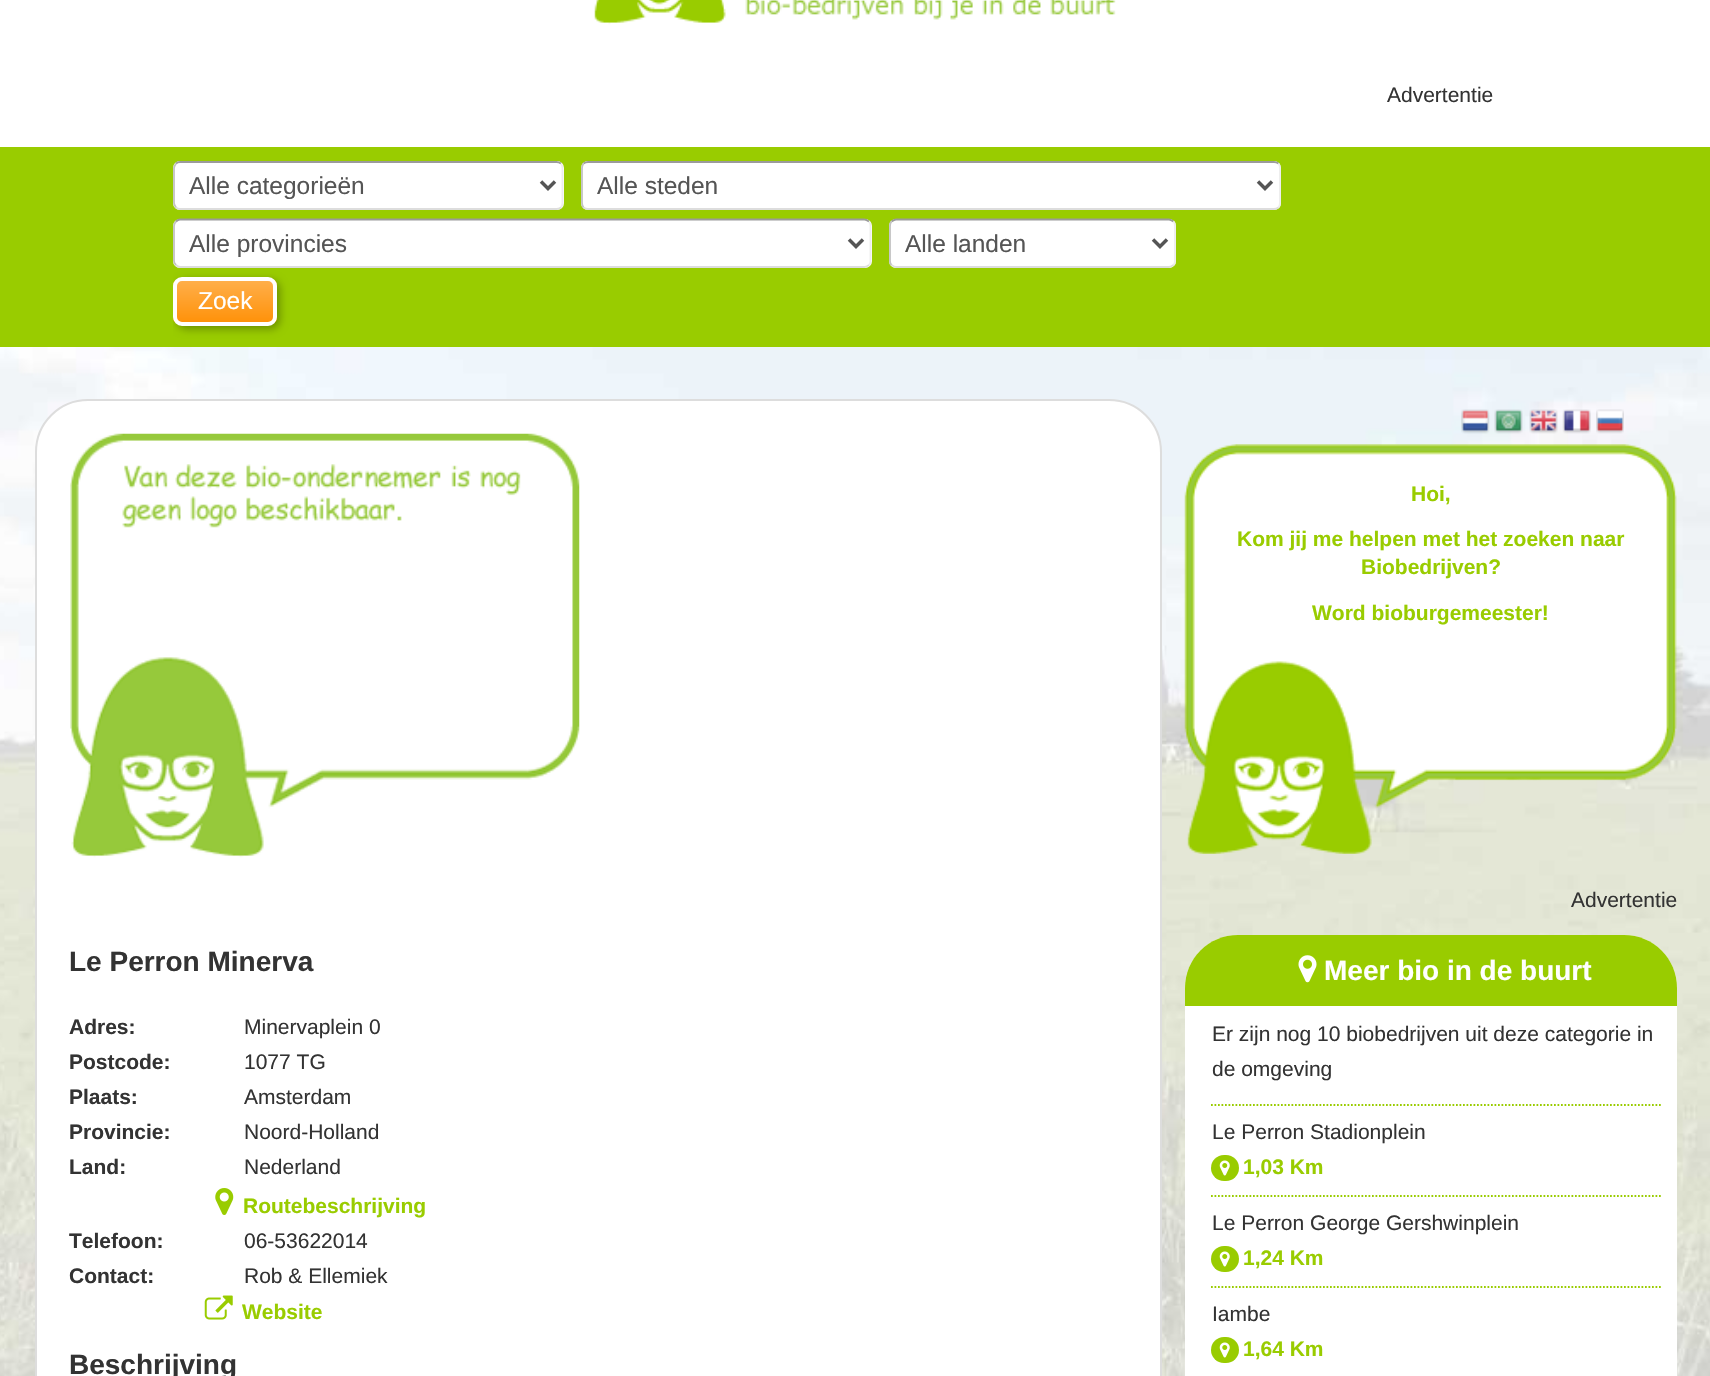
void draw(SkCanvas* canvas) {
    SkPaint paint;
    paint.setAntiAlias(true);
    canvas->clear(0xFFFFFFFF);
    canvas->drawImageRect(SkImages::DeferredFromEncodedData(SkData::MakeFromFileName("img1.png")), SkRect::MakeXYWH(0, 347, 1710, 1029), SkSamplingOptions());
    canvas->drawImageRect(SkImages::DeferredFromEncodedData(SkData::MakeFromFileName("img2.png")), SkRect::MakeXYWH(594, 0, 522, 25), SkSamplingOptions());
    SkFont font1(fontMgr->matchFamilyStyle("Liberation Sans", SkFontStyle::Normal()), 21);
    font1.setSubpixel(true);
    paint.setColor(0xFF333333);
    canvas->drawString("Advertentie", 1387, 102, font1, paint);
    paint.setColor(0xFF99CC00);
    canvas->drawRect(SkRect::MakeXYWH(0, 147, 1710, 200), paint);
    paint.setColor(0xFFFFFFFF);
    canvas->drawRoundRect(SkRect::MakeXYWH(173, 161, 391, 49), 7, 7, paint);
    paint.setStyle(SkPaint::kStroke_Style);
    paint.setStrokeWidth(1.8f);
    paint.setColor(0xFF9B9B9B);
    canvas->drawPath(SkPathBuilder().moveTo(176, 163.5f).cubicTo(177, 162.5f, 178.5f, 162, 180, 162).lineTo(556.5f, 162).cubicTo(558, 162, 559.5f, 162.5f, 561, 163.5f).detach(), paint);
    paint.setColor(0xFFEDEDED);
    canvas->drawPath(SkPathBuilder().moveTo(561, 163.5f).cubicTo(562, 165, 562.5f, 166.5f, 562.5f, 168).lineTo(562.5f, 203).cubicTo(562.5f, 204.5f, 562, 206, 561, 207.5f).detach(), paint);
    paint.setColor(0xFFDDDDDD);
    canvas->drawPath(SkPathBuilder().moveTo(561, 207.5f).cubicTo(559.5f, 208.5f, 558, 209, 556.5f, 209).lineTo(180, 209).cubicTo(178.5f, 209, 177, 208.5f, 176, 207.5f).detach(), paint);
    paint.setColor(0xFFC2C2C2);
    canvas->drawPath(SkPathBuilder().moveTo(176, 207.5f).cubicTo(175, 206, 174, 204.5f, 174, 203).lineTo(174, 168).cubicTo(174, 166.5f, 175, 165, 176, 163.5f).detach(), paint);
    paint.setStrokeWidth(3.5f);
    paint.setColor(0xFF555555);
    canvas->drawPath(SkPathBuilder().moveTo(541, 181.5f).lineTo(548, 188.5f).lineTo(555, 181.5f).detach(), paint);
    SkFont font2(fontMgr->matchFamilyStyle("Liberation Sans", SkFontStyle::Normal()), 24.5f);
    font2.setSubpixel(true);
    paint.setStyle(SkPaint::kFill_Style);
    canvas->drawString("Alle categorieën", 189, 194, font2, paint);
    paint.setColor(0xFFFFFFFF);
    canvas->drawRoundRect(SkRect::MakeXYWH(581, 161, 700, 49), 7, 7, paint);
    paint.setStyle(SkPaint::kStroke_Style);
    paint.setStrokeWidth(1.8f);
    paint.setColor(0xFF9B9B9B);
    canvas->drawPath(SkPathBuilder().moveTo(583.5f, 163.5f).cubicTo(585, 162.5f, 586.5f, 162, 588, 162).lineTo(1274, 162).cubicTo(1275.5f, 162, 1277, 162.5f, 1278.5f, 163.5f).detach(), paint);
    paint.setColor(0xFFEDEDED);
    canvas->drawPath(SkPathBuilder().moveTo(1278.5f, 163.5f).cubicTo(1279.5f, 165, 1280, 166.5f, 1280, 168).lineTo(1280, 203).cubicTo(1280, 204.5f, 1279.5f, 206, 1278.5f, 207.5f).detach(), paint);
    paint.setColor(0xFFDDDDDD);
    canvas->drawPath(SkPathBuilder().moveTo(1278.5f, 207.5f).cubicTo(1277, 208.5f, 1275.5f, 209, 1274, 209).lineTo(588, 209).cubicTo(586.5f, 209, 585, 208.5f, 583.5f, 207.5f).detach(), paint);
    paint.setColor(0xFFC2C2C2);
    canvas->drawPath(SkPathBuilder().moveTo(583.5f, 207.5f).cubicTo(582.5f, 206, 582, 204.5f, 582, 203).lineTo(582, 168).cubicTo(582, 166.5f, 582.5f, 165, 583.5f, 163.5f).detach(), paint);
    paint.setStrokeWidth(3.5f);
    paint.setColor(0xFF555555);
    canvas->drawPath(SkPathBuilder().moveTo(1258, 181.5f).lineTo(1265, 188.5f).lineTo(1272, 181.5f).detach(), paint);
    paint.setStyle(SkPaint::kFill_Style);
    canvas->drawString("Alle steden", 597, 194, font2, paint);
    canvas->save();
    canvas->clipRect(SkRect::MakeXYWH(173, 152, 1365, 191));
    paint.setColor(0x4D000000);
    paint.setMaskFilter(SkMaskFilter::MakeBlur(kNormal_SkBlurStyle, 4.5f));
    canvas->drawRoundRect(SkRect::MakeXYWH(177, 280, 103, 49), 9, 9, paint);
    paint.setMaskFilter(nullptr);
    canvas->restore();
    paint.setColor(0xFFFFFFFF);
    canvas->drawRoundRect(SkRect::MakeXYWH(173, 219, 699, 49), 7, 7, paint);
    paint.setStyle(SkPaint::kStroke_Style);
    paint.setStrokeWidth(1.8f);
    paint.setColor(0xFF9B9B9B);
    canvas->drawPath(SkPathBuilder().moveTo(176, 221.5f).cubicTo(177, 220.5f, 178.5f, 219.5f, 180, 219.5f).lineTo(864.5f, 219.5f).cubicTo(866, 219.5f, 867.5f, 220.5f, 869, 221.5f).detach(), paint);
    paint.setColor(0xFFEDEDED);
    canvas->drawPath(SkPathBuilder().moveTo(869, 221.5f).cubicTo(870, 222.5f, 870.5f, 224, 870.5f, 226).lineTo(870.5f, 261).cubicTo(870.5f, 262.5f, 870, 264, 869, 265).detach(), paint);
    paint.setColor(0xFFDDDDDD);
    canvas->drawPath(SkPathBuilder().moveTo(869, 265).cubicTo(867.5f, 266, 866, 267, 864.5f, 267).lineTo(180, 267).cubicTo(178.5f, 267, 177, 266, 176, 265).detach(), paint);
    paint.setColor(0xFFC2C2C2);
    canvas->drawPath(SkPathBuilder().moveTo(176, 265).cubicTo(175, 264, 174, 262.5f, 174, 261).lineTo(174, 226).cubicTo(174, 224, 175, 222.5f, 176, 221.5f).detach(), paint);
    paint.setStrokeWidth(3.5f);
    paint.setColor(0xFF555555);
    canvas->drawPath(SkPathBuilder().moveTo(849, 239.5f).lineTo(856, 246.5f).lineTo(863, 239.5f).detach(), paint);
    paint.setStyle(SkPaint::kFill_Style);
    canvas->drawString("Alle provincies", 189, 252, font2, paint);
    paint.setColor(0xFFFFFFFF);
    canvas->drawRoundRect(SkRect::MakeXYWH(889, 219, 287, 49), 7, 7, paint);
    paint.setStyle(SkPaint::kStroke_Style);
    paint.setStrokeWidth(1.8f);
    paint.setColor(0xFF9B9B9B);
    canvas->drawPath(SkPathBuilder().moveTo(891.5f, 221.5f).cubicTo(893, 220.5f, 894.5f, 219.5f, 896, 219.5f).lineTo(1169, 219.5f).cubicTo(1170.5f, 219.5f, 1172, 220.5f, 1173.5f, 221.5f).detach(), paint);
    paint.setColor(0xFFEDEDED);
    canvas->drawPath(SkPathBuilder().moveTo(1173.5f, 221.5f).cubicTo(1174.5f, 222.5f, 1175, 224, 1175, 226).lineTo(1175, 261).cubicTo(1175, 262.5f, 1174.5f, 264, 1173.5f, 265).detach(), paint);
    paint.setColor(0xFFDDDDDD);
    canvas->drawPath(SkPathBuilder().moveTo(1173.5f, 265).cubicTo(1172, 266, 1170.5f, 267, 1169, 267).lineTo(896, 267).cubicTo(894.5f, 267, 893, 266, 891.5f, 265).detach(), paint);
    paint.setColor(0xFFC2C2C2);
    canvas->drawPath(SkPathBuilder().moveTo(891.5f, 265).cubicTo(890.5f, 264, 890, 262.5f, 890, 261).lineTo(890, 226).cubicTo(890, 224, 890.5f, 222.5f, 891.5f, 221.5f).detach(), paint);
    paint.setStrokeWidth(3.5f);
    paint.setColor(0xFF555555);
    canvas->drawPath(SkPathBuilder().moveTo(1153, 239.5f).lineTo(1160, 246.5f).lineTo(1167, 239.5f).detach(), paint);
    paint.setStyle(SkPaint::kFill_Style);
    canvas->drawString("Alle landen", 905, 252, font2, paint);
    canvas->save();
    canvas->clipPath(SkPathBuilder().moveTo(182, 277).lineTo(268, 277).cubicTo(273, 277, 277, 281, 277, 286).lineTo(277, 317).cubicTo(277, 322, 273, 326, 268, 326).lineTo(182, 326).cubicTo(177, 326, 173, 322, 173, 317).lineTo(173, 286).cubicTo(173, 281, 177, 277, 182, 277).close().detach(), true);
    {
        const SkColor colors[] = {0xFFFFAF4B, 0xFFFF920A};
        const float stops[] = {0, 1};
        const SkPoint ends[] = {{225, 280}, {225, 322}};
        paint.setShader(SkGradientShader::MakeLinear(ends, colors, stops, 2, SkTileMode::kClamp));
        paint.setAlpha(255);
    }
    canvas->drawRect(SkRect::MakeXYWH(173, 280, 104, 42), paint);
    canvas->restore();
    paint.setStyle(SkPaint::kStroke_Style);
    paint.setStrokeWidth(4);
    paint.setShader(nullptr);
    paint.setColor(0xFFFFFFFF);
    canvas->drawRoundRect(SkRect::MakeXYWH(175, 279, 100, 45), 7, 7, paint);
    paint.setStyle(SkPaint::kFill_Style);
    canvas->drawString("Zoek", 198, 309, font2, paint);
    canvas->drawRoundRect(SkRect::MakeXYWH(36, 400, 1125, 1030), 52, 52, paint);
    paint.setStyle(SkPaint::kStroke_Style);
    paint.setStrokeWidth(2);
    paint.setColor(0xFFDDDDDD);
    canvas->drawRoundRect(SkRect::MakeXYWH(36, 400, 1125, 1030), 52, 52, paint);
    canvas->drawImageRect(SkImages::DeferredFromEncodedData(SkData::MakeFromFileName("img3.png")), SkRect::MakeXYWH(70, 433, 510, 425), SkSamplingOptions());
    SkFont font3(fontMgr->matchFamilyStyle("Liberation Sans", SkFontStyle::Bold()), 28);
    font3.setSubpixel(true);
    paint.setStyle(SkPaint::kFill_Style);
    paint.setColor(0xFF333333);
    canvas->drawString("Le Perron Minerva", 69, 971, font3, paint);
    SkFont font4(fontMgr->matchFamilyStyle("Liberation Sans", SkFontStyle::Bold()), 21);
    font4.setSubpixel(true);
    canvas->drawString("Adres:", 69, 1034, font4, paint);
    canvas->drawString("Minervaplein 0", 244, 1034, font1, paint);
    canvas->drawString("Postcode:", 69, 1069, font4, paint);
    canvas->drawString("1077 TG", 244, 1069, font1, paint);
    canvas->drawString("Plaats:", 69, 1104, font4, paint);
    canvas->drawString("Amsterdam", 244, 1104, font1, paint);
    canvas->drawString("Provincie:", 69, 1139, font4, paint);
    canvas->drawString("Noord-Holland", 244, 1139, font1, paint);
    canvas->drawString("Land:", 69, 1174, font4, paint);
    canvas->drawString("Nederland", 244, 1174, font1, paint);
    canvas->drawImageRect(SkImages::DeferredFromEncodedData(SkData::MakeFromFileName("img4.png")), SkRect::MakeXYWH(215, 1188, 19, 27), SkSamplingOptions());
    paint.setColor(0xFF99CC00);
    canvas->drawString("Routebeschrijving", 243, 1213, font4, paint);
    paint.setColor(0xFF333333);
    canvas->drawString("Telefoon:", 69, 1248, font4, paint);
    canvas->drawString("06-53622014", 244, 1248, font1, paint);
    canvas->drawString("Contact:", 69, 1283, font4, paint);
    canvas->drawString("Rob & Ellemiek", 244, 1283, font1, paint);
    canvas->drawImageRect(SkImages::DeferredFromEncodedData(SkData::MakeFromFileName("img5.png")), SkRect::MakeXYWH(204, 1295, 29, 25), SkSamplingOptions());
    paint.setColor(0xFF99CC00);
    canvas->drawString("Website", 242, 1319, font4, paint);
    paint.setColor(0xFF333333);
    canvas->drawString("Beschrijving", 69, 1374, font3, paint);
    canvas->drawImageRect(SkImages::DeferredFromEncodedData(SkData::MakeFromFileName("img6.png")), SkRect::MakeXYWH(1461, 409, 29, 25), SkSamplingOptions());
    canvas->drawImageRect(SkImages::DeferredFromEncodedData(SkData::MakeFromFileName("img7.png")), SkRect::MakeXYWH(1494, 409, 29, 25), SkSamplingOptions());
    canvas->drawImageRect(SkImages::DeferredFromEncodedData(SkData::MakeFromFileName("img8.png")), SkRect::MakeXYWH(1529, 409, 29, 25), SkSamplingOptions());
    canvas->drawImageRect(SkImages::DeferredFromEncodedData(SkData::MakeFromFileName("img9.png")), SkRect::MakeXYWH(1562, 409, 29, 25), SkSamplingOptions());
    canvas->drawImageRect(SkImages::DeferredFromEncodedData(SkData::MakeFromFileName("img10.png")), SkRect::MakeXYWH(1596, 409, 28, 25), SkSamplingOptions());
    canvas->drawImageRect(SkImages::DeferredFromEncodedData(SkData::MakeFromFileName("img11.png")), SkRect::MakeXYWH(1184, 444, 493, 410), SkSamplingOptions());
    paint.setColor(0xFF99CC00);
    canvas->drawString("Hoi,", 1411, 501, font4, paint);
    canvas->drawString("Kom jij me helpen met het zoeken naar", 1237, 546, font4, paint);
    canvas->drawString("Biobedrijven?", 1361, 574, font4, paint);
    canvas->drawString("Word bioburgemeester!", 1312, 620, font4, paint);
    paint.setColor(0xFF333333);
    canvas->drawString("Advertentie", 1571, 907, font1, paint);
    paint.setColor(0xFFFFFFFF);
    canvas->drawRoundRect(SkRect::MakeXYWH(1185, 935, 492, 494), 53, 53, paint);
    paint.setColor(0xFF99CC00);
    canvas->drawPath(SkPathBuilder().moveTo(1238, 935).lineTo(1624, 935).cubicTo(1653.5f, 935, 1677, 958.5f, 1677, 988).lineTo(1677, 1006).lineTo(1185, 1006).lineTo(1185, 988).cubicTo(1185, 958.5f, 1208.5f, 935, 1238, 935).close().detach(), paint);
    canvas->drawImageRect(SkImages::DeferredFromEncodedData(SkData::MakeFromFileName("img12.png")), SkRect::MakeXYWH(1298, 955, 19, 28), SkSamplingOptions());
    paint.setColor(0xFFFFFFFF);
    canvas->drawString("Meer bio in de buurt", 1324, 980, font3, paint);
    paint.setColor(0xFF333333);
    canvas->drawString("Er zijn nog 10 biobedrijven uit deze categorie in", 1212, 1041, font1, paint);
    canvas->drawString("de omgeving", 1212, 1076, font1, paint);
    paint.setStyle(SkPaint::kStroke_Style);
    paint.setStrokeWidth(1.8f);
    paint.setColor(0xFF99CC00);
    paint.setPathEffect(SkDashPathEffect::Make({{1.75f, 1.75f}}, 0));
    canvas->drawPath(SkPathBuilder().moveTo(1211, 1105).lineTo(1661, 1105).detach(), paint);
    paint.setPathEffect(nullptr);
    paint.setStyle(SkPaint::kFill_Style);
    paint.setColor(0xFF333333);
    canvas->drawString("Le Perron Stadionplein", 1212, 1139, font1, paint);
    paint.setColor(0xFF99CC00);
    canvas->drawRoundRect(SkRect::MakeXYWH(1211, 1155, 28, 26), 13, 13, paint);
    canvas->drawImageRect(SkImages::DeferredFromEncodedData(SkData::MakeFromFileName("img13.png")), SkRect::MakeXYWH(1219, 1160, 11, 16), SkSamplingOptions());
    canvas->drawString("1,03 Km", 1243, 1174, font4, paint);
    paint.setStyle(SkPaint::kStroke_Style);
    paint.setPathEffect(SkDashPathEffect::Make({{1.75f, 1.75f}}, 0));
    canvas->drawPath(SkPathBuilder().moveTo(1211, 1196).lineTo(1661, 1196).detach(), paint);
    paint.setPathEffect(nullptr);
    paint.setStyle(SkPaint::kFill_Style);
    paint.setColor(0xFF333333);
    canvas->drawString("Le Perron George Gershwinplein", 1212, 1230, font1, paint);
    paint.setColor(0xFF99CC00);
    canvas->drawRoundRect(SkRect::MakeXYWH(1211, 1246, 28, 26), 13, 13, paint);
    canvas->drawImageRect(SkImages::DeferredFromEncodedData(SkData::MakeFromFileName("img13.png")), SkRect::MakeXYWH(1219, 1251, 11, 16), SkSamplingOptions());
    canvas->drawString("1,24 Km", 1243, 1265, font4, paint);
    paint.setStyle(SkPaint::kStroke_Style);
    paint.setPathEffect(SkDashPathEffect::Make({{1.75f, 1.75f}}, 0));
    canvas->drawPath(SkPathBuilder().moveTo(1211, 1287).lineTo(1661, 1287).detach(), paint);
    paint.setPathEffect(nullptr);
    paint.setStyle(SkPaint::kFill_Style);
    paint.setColor(0xFF333333);
    canvas->drawString("Iambe", 1212, 1321, font1, paint);
    paint.setColor(0xFF99CC00);
    canvas->drawRoundRect(SkRect::MakeXYWH(1211, 1337, 28, 26), 13, 13, paint);
    canvas->drawImageRect(SkImages::DeferredFromEncodedData(SkData::MakeFromFileName("img13.png")), SkRect::MakeXYWH(1219, 1342, 11, 16), SkSamplingOptions());
    canvas->drawString("1,64 Km", 1243, 1356, font4, paint);
}
